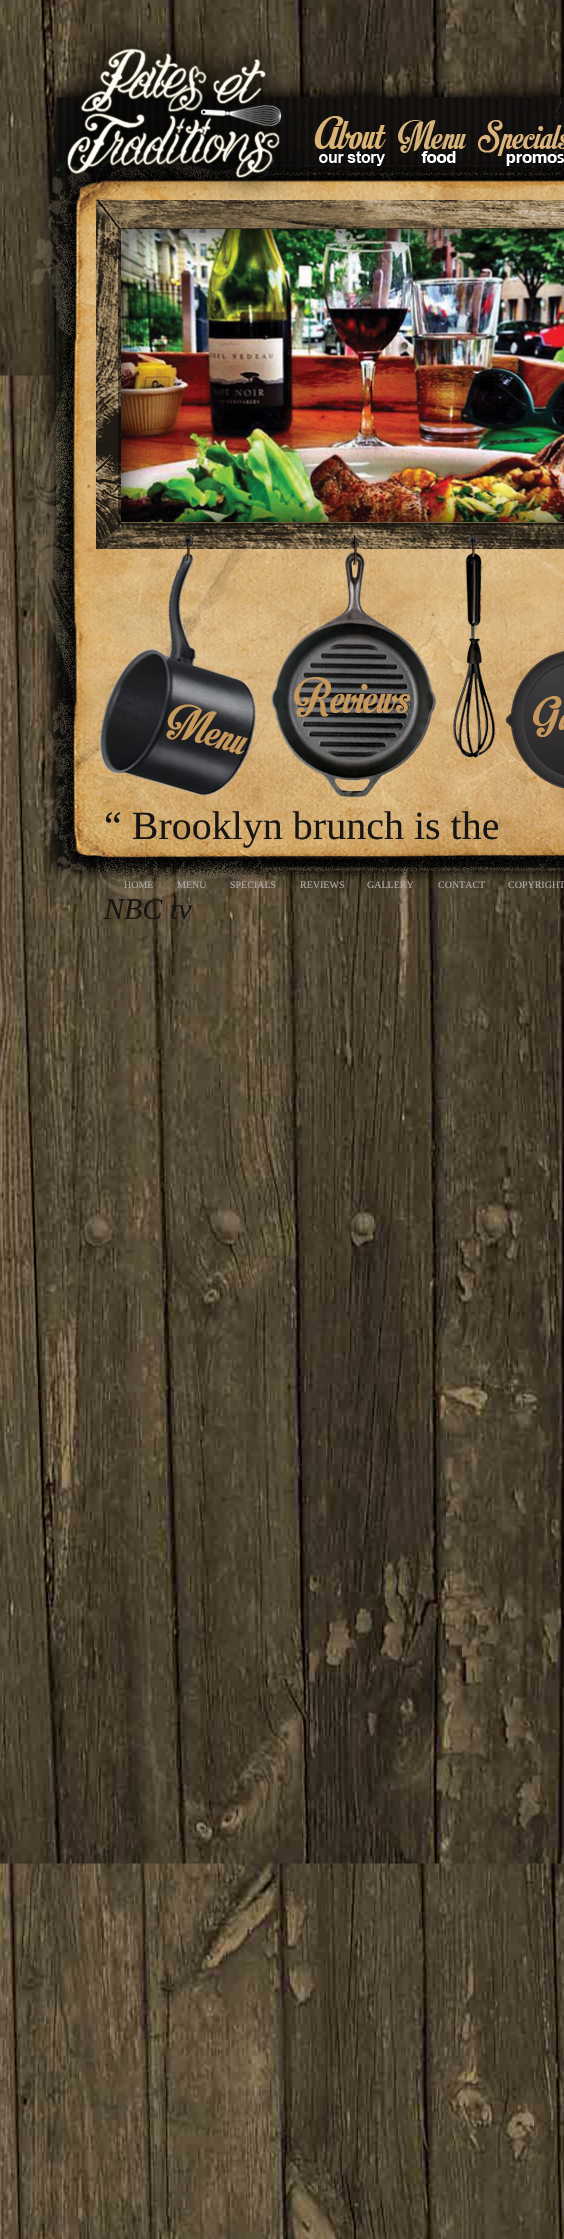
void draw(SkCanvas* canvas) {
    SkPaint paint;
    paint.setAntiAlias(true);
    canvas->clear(0xFFFFFFFF);
    canvas->drawImageRect(SkImages::DeferredFromEncodedData(SkData::MakeFromFileName("img1.png")), SkRect::MakeXYWH(0, 0, 564, 2239), SkSamplingOptions());
    canvas->drawImageRect(SkImages::DeferredFromEncodedData(SkData::MakeFromFileName("img2.png")), SkRect::MakeXYWH(37, 25, 259, 190), SkSamplingOptions());
    canvas->drawImageRect(SkImages::DeferredFromEncodedData(SkData::MakeFromFileName("img3.png")), SkRect::MakeXYWH(296, 81, 268, 119), SkSamplingOptions());
    canvas->drawImageRect(SkImages::DeferredFromEncodedData(SkData::MakeFromFileName("img4.png")), SkRect::MakeXYWH(314, 116, 72, 50), SkSamplingOptions());
    canvas->drawImageRect(SkImages::DeferredFromEncodedData(SkData::MakeFromFileName("img5.png")), SkRect::MakeXYWH(398, 120, 68, 43), SkSamplingOptions());
    canvas->drawImageRect(SkImages::DeferredFromEncodedData(SkData::MakeFromFileName("img6.png")), SkRect::MakeXYWH(478, 120, 86, 46), SkSamplingOptions());
    canvas->drawImageRect(SkImages::DeferredFromEncodedData(SkData::MakeFromFileName("img7.png")), SkRect::MakeXYWH(30, 215, 534, 601), SkSamplingOptions());
    canvas->drawImageRect(SkImages::DeferredFromEncodedData(SkData::MakeFromFileName("img9.png")), SkRect::MakeXYWH(121, 228, 443, 294), SkSamplingOptions());
    canvas->drawImageRect(SkImages::DeferredFromEncodedData(SkData::MakeFromFileName("img8.png")), SkRect::MakeXYWH(93, 198, 471, 351), SkSamplingOptions());
    canvas->drawImageRect(SkImages::DeferredFromEncodedData(SkData::MakeFromFileName("img10.png")), SkRect::MakeXYWH(98, 549, 159, 247), SkSamplingOptions());
    canvas->drawImageRect(SkImages::DeferredFromEncodedData(SkData::MakeFromFileName("img11.png")), SkRect::MakeXYWH(271, 549, 202, 249), SkSamplingOptions());
    canvas->drawImageRect(SkImages::DeferredFromEncodedData(SkData::MakeFromFileName("img12.png")), SkRect::MakeXYWH(473, 549, 91, 240), SkSamplingOptions());
    canvas->drawImageRect(SkImages::DeferredFromEncodedData(SkData::MakeFromFileName("img13.png")), SkRect::MakeXYWH(36, 816, 528, 84), SkSamplingOptions());
    SkFont font1(fontMgr->matchFamilyStyle("Liberation Serif", SkFontStyle::Normal()), 40);
    font1.setSubpixel(true);
    paint.setColor(0xFF171513);
    canvas->drawString("“ Brooklyn brunch is the", 104, 839, font1, paint);
    SkFont font2(fontMgr->matchFamilyStyle("Liberation Serif", SkFontStyle::Italic()), 30);
    font2.setSubpixel(true);
    canvas->drawString("NBC tv", 104, 919, font2, paint);
    SkFont font3(fontMgr->matchFamilyStyle("Liberation Serif", SkFontStyle::Normal()), 10);
    font3.setSubpixel(true);
    paint.setColor(0xFFADABA9);
    canvas->drawString("HOME", 124, 888, font3, paint);
    canvas->drawString("MENU", 177, 888, font3, paint);
    canvas->drawString("SPECIALS", 230, 888, font3, paint);
    canvas->drawString("REVIEWS", 300, 888, font3, paint);
    canvas->drawString("GALLERY", 367, 888, font3, paint);
    canvas->drawString("CONTACT", 438, 888, font3, paint);
    canvas->drawString("COPYRIGHT", 508, 888, font3, paint);
}
